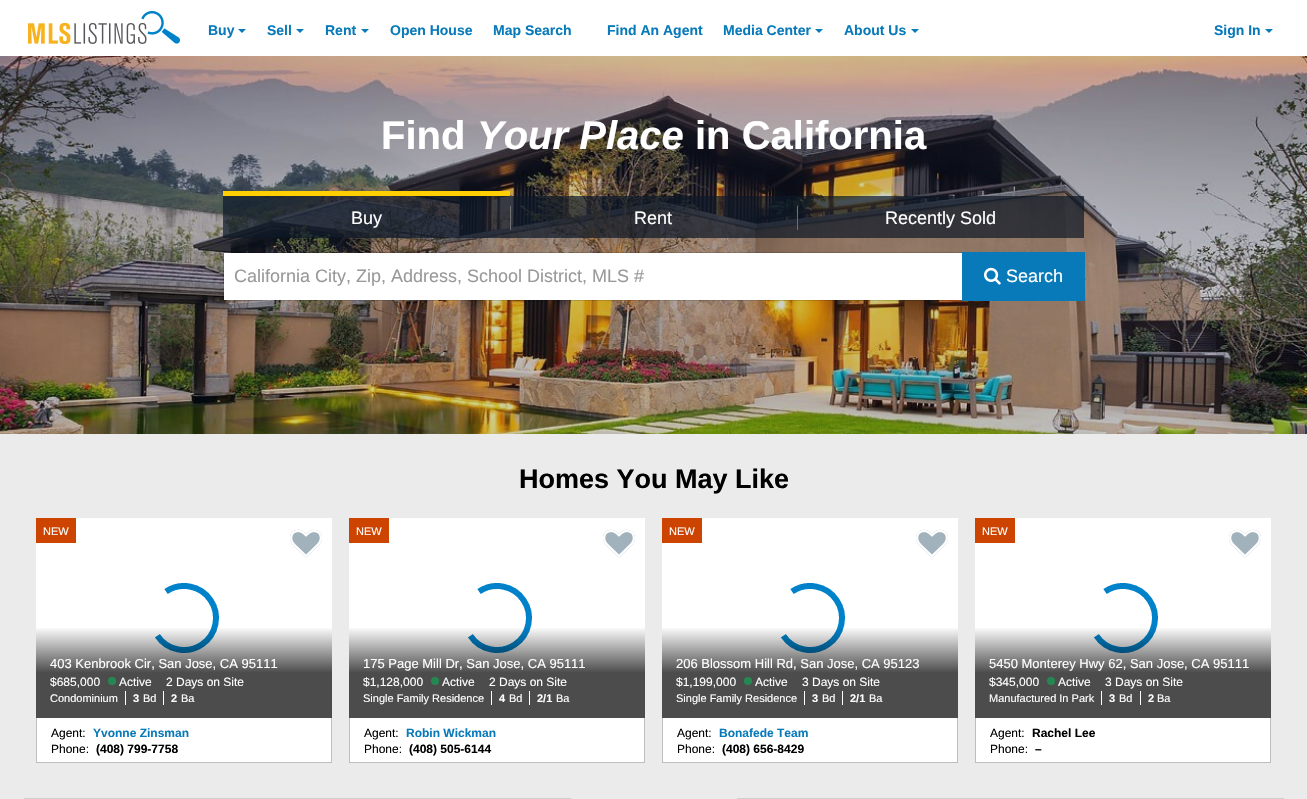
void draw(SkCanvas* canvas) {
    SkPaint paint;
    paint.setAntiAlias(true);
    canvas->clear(0xFFFFFFFF);
    canvas->drawImageRect(SkImages::DeferredFromEncodedData(SkData::MakeFromFileName("img1.png")), SkRect::MakeXYWH(28, 11, 152, 33), SkSamplingOptions());
    SkFont font1(fontMgr->matchFamilyStyle("Liberation Sans", SkFontStyle::Bold()), 14);
    font1.setSubpixel(true);
    paint.setColor(0xFF087ABA);
    canvas->drawString("Buy", 208, 35, font1, paint);
    canvas->drawPath(SkPathBuilder().moveTo(238, 29).lineTo(246, 29).lineTo(242, 33).close().detach(), paint);
    canvas->drawString("Sell", 267, 35, font1, paint);
    canvas->drawPath(SkPathBuilder().moveTo(296, 29).lineTo(304, 29).lineTo(300, 33).close().detach(), paint);
    canvas->drawString("Rent", 325, 35, font1, paint);
    canvas->drawPath(SkPathBuilder().moveTo(361, 29).lineTo(369, 29).lineTo(365, 33).close().detach(), paint);
    canvas->drawString("Open House", 390, 35, font1, paint);
    canvas->drawString("Map Search", 493, 35, font1, paint);
    canvas->drawString("Find An Agent", 607, 35, font1, paint);
    canvas->drawString("Media Center", 723, 35, font1, paint);
    canvas->drawPath(SkPathBuilder().moveTo(815, 29).lineTo(823, 29).lineTo(819, 33).close().detach(), paint);
    canvas->drawString("About Us", 844, 35, font1, paint);
    canvas->drawPath(SkPathBuilder().moveTo(911, 29).lineTo(919, 29).lineTo(915, 33).close().detach(), paint);
    canvas->drawString("Sign In", 1214, 35, font1, paint);
    canvas->drawPath(SkPathBuilder().moveTo(1265, 29).lineTo(1273, 29).lineTo(1269, 33).close().detach(), paint);
    canvas->drawImageRect(SkImages::DeferredFromEncodedData(SkData::MakeFromFileName("img2.png")), SkRect::MakeXYWH(0, 56, 1307, 378), SkSamplingOptions());
    SkFont font2(fontMgr->matchFamilyStyle("Liberation Sans", SkFontStyle::Bold()), 40);
    font2.setSubpixel(true);
    paint.setColor(0xFFFFFFFF);
    canvas->drawString("Find", 381, 149, font2, paint);
    SkFont font3(fontMgr->matchFamilyStyle("Liberation Sans", SkFontStyle::BoldItalic()), 40);
    font3.setSubpixel(true);
    canvas->drawString("Your Place", 477, 149, font3, paint);
    canvas->drawString("in California", 695, 149, font2, paint);
    paint.setColor(0xB30C1726);
    canvas->drawRect(SkRect::MakeXYWH(223, 196, 287, 42), paint);
    paint.setColor(0xFFFFCF01);
    canvas->drawRect(SkRect::MakeXYWH(223, 191, 287, 5), paint);
    SkFont font4(fontMgr->matchFamilyStyle("Liberation Sans", SkFontStyle::Normal()), 18);
    font4.setSubpixel(true);
    paint.setColor(0xFFFFFFFF);
    canvas->drawString("Buy", 351, 224, font4, paint);
    paint.setColor(0xB30C1726);
    canvas->drawRect(SkRect::MakeXYWH(510, 196, 287, 42), paint);
    paint.setColor(0xFF707070);
    canvas->drawRect(SkRect::MakeXYWH(510, 206, 1, 24), paint);
    paint.setColor(0xFFFFFFFF);
    canvas->drawString("Rent", 634, 224, font4, paint);
    paint.setColor(0xB30C1726);
    canvas->drawRect(SkRect::MakeXYWH(797, 196, 287, 42), paint);
    paint.setColor(0xFF707070);
    canvas->drawRect(SkRect::MakeXYWH(797, 206, 1, 24), paint);
    paint.setColor(0xFFFFFFFF);
    canvas->drawString("Recently Sold", 885, 224, font4, paint);
    canvas->drawRect(SkRect::MakeXYWH(224, 253, 738, 47), paint);
    paint.setStyle(SkPaint::kStroke_Style);
    paint.setStrokeWidth(1);
    paint.setColor(0x26000000);
    canvas->drawRect(SkRect::MakeXYWH(223.5f, 252.5f, 739, 48), paint);
    paint.setStyle(SkPaint::kFill_Style);
    paint.setColor(0xFF999999);
    canvas->drawString("California City, Zip, Address, School District, MLS #", 234, 282, font4, paint);
    paint.setColor(0xFF087ABA);
    canvas->drawRect(SkRect::MakeXYWH(962, 252, 123, 49), paint);
    canvas->drawImageRect(SkImages::DeferredFromEncodedData(SkData::MakeFromFileName("img3.png")), SkRect::MakeXYWH(984, 267, 17, 18), SkSamplingOptions());
    paint.setColor(0xFFFFFFFF);
    canvas->drawString("Search", 1006, 282, font4, paint);
    paint.setColor(0xFFEBEBEB);
    canvas->drawRect(SkRect::MakeXYWH(0, 434, 1307, 365), paint);
    SkFont font5(fontMgr->matchFamilyStyle("Liberation Sans", SkFontStyle::Bold()), 27);
    font5.setSubpixel(true);
    paint.setColor(0xFF000000);
    canvas->drawString("Homes You May Like", 519, 488, font5, paint);
    paint.setColor(0xFFFFFFFF);
    canvas->drawRect(SkRect::MakeXYWH(36, 518, 296, 244), paint);
    paint.setColor(0xFFCC4400);
    canvas->drawRect(SkRect::MakeXYWH(36, 518, 40, 25), paint);
    SkFont font6(fontMgr->matchFamilyStyle("Liberation Sans", SkFontStyle::Normal()), 11);
    font6.setSubpixel(true);
    paint.setColor(0xFFFFFFFF);
    canvas->drawString("NEW", 43, 535, font6, paint);
    canvas->drawImageRect(SkImages::DeferredFromEncodedData(SkData::MakeFromFileName("img4.png")), SkRect::MakeXYWH(155, 583, 64, 70), SkSamplingOptions());
    {
        const SkColor colors[] = {0x00000000, 0xB3000000};
        const float stops[] = {0.13f, 0.57f};
        const SkPoint ends[] = {{184, 613}, {184, 718}};
        paint.setShader(SkGradientShader::MakeLinear(ends, colors, stops, 2, SkTileMode::kClamp));
        paint.setAlpha(255);
    }
    canvas->drawRect(SkRect::MakeXYWH(36, 628, 296, 90), paint);
    SkFont font7(fontMgr->matchFamilyStyle("Liberation Sans", SkFontStyle::Normal()), 13);
    font7.setSubpixel(true);
    paint.setShader(nullptr);
    paint.setColor(0xFFFFFFFF);
    canvas->drawString("403 Kenbrook Cir, San Jose, CA 95111", 50, 668, font7, paint);
    SkFont font8(fontMgr->matchFamilyStyle("Liberation Sans", SkFontStyle::Normal()), 12);
    font8.setSubpixel(true);
    canvas->drawString("$685,000", 50, 686, font8, paint);
    paint.setColor(0xFF258752);
    canvas->drawCircle(112, 681, 4, paint);
    paint.setColor(0xFFFFFFFF);
    canvas->drawString("Active", 119, 686, font8, paint);
    canvas->drawString("2 Days on Site", 166, 686, font8, paint);
    canvas->drawRect(SkRect::MakeXYWH(125, 691, 1, 14), paint);
    canvas->drawString("Condominium", 50, 702, font6, paint);
    canvas->drawRect(SkRect::MakeXYWH(163, 691, 1, 14), paint);
    SkFont font9(fontMgr->matchFamilyStyle("Liberation Sans", SkFontStyle::Bold()), 11);
    font9.setSubpixel(true);
    canvas->drawString("3", 133, 702, font9, paint);
    canvas->drawString("Bd", 143, 702, font6, paint);
    canvas->drawString("2", 171, 702, font9, paint);
    canvas->drawString("Ba", 181, 702, font6, paint);
    paint.setColor(0xFFBEBEBE);
    canvas->drawRect(SkRect::MakeXYWH(331, 718, 1, 45), paint);
    canvas->drawRect(SkRect::MakeXYWH(36, 762, 296, 1), paint);
    canvas->drawRect(SkRect::MakeXYWH(36, 718, 1, 45), paint);
    canvas->drawImageRect(SkImages::DeferredFromEncodedData(SkData::MakeFromFileName("img5.png")), SkRect::MakeXYWH(290, 529, 32, 29), SkSamplingOptions());
    canvas->drawImageRect(SkImages::DeferredFromEncodedData(SkData::MakeFromFileName("img6.png")), SkRect::MakeXYWH(290, 530, 32, 27), SkSamplingOptions());
    paint.setColor(0xFF000000);
    canvas->drawString("Agent:", 51, 737, font8, paint);
    SkFont font10(fontMgr->matchFamilyStyle("Liberation Sans", SkFontStyle::Bold()), 12);
    font10.setSubpixel(true);
    paint.setColor(0xFF087ABA);
    canvas->drawString("Yvonne Zinsman", 93, 737, font10, paint);
    paint.setColor(0xFF000000);
    canvas->drawString("Phone:", 51, 753, font8, paint);
    canvas->drawString("(408) 799-7758", 96, 753, font10, paint);
    paint.setColor(0xFFFFFFFF);
    canvas->drawRect(SkRect::MakeXYWH(349, 518, 296, 244), paint);
    paint.setColor(0xFFCC4400);
    canvas->drawRect(SkRect::MakeXYWH(349, 518, 40, 25), paint);
    paint.setColor(0xFFFFFFFF);
    canvas->drawString("NEW", 356, 535, font6, paint);
    canvas->drawImageRect(SkImages::DeferredFromEncodedData(SkData::MakeFromFileName("img4.png")), SkRect::MakeXYWH(468, 583, 64, 70), SkSamplingOptions());
    {
        const SkColor colors[] = {0x00000000, 0xB3000000};
        const float stops[] = {0.13f, 0.57f};
        const SkPoint ends[] = {{497, 613}, {497, 718}};
        paint.setShader(SkGradientShader::MakeLinear(ends, colors, stops, 2, SkTileMode::kClamp));
        paint.setAlpha(255);
    }
    canvas->drawRect(SkRect::MakeXYWH(349, 628, 296, 90), paint);
    paint.setShader(nullptr);
    paint.setColor(0xFFFFFFFF);
    canvas->drawString("175 Page Mill Dr, San Jose, CA 95111", 363, 668, font7, paint);
    canvas->drawString("$1,128,000", 363, 686, font8, paint);
    paint.setColor(0xFF258752);
    canvas->drawCircle(435, 681, 4, paint);
    paint.setColor(0xFFFFFFFF);
    canvas->drawString("Active", 442, 686, font8, paint);
    canvas->drawString("2 Days on Site", 489, 686, font8, paint);
    canvas->drawRect(SkRect::MakeXYWH(491, 691, 1, 14), paint);
    canvas->drawString("Single Family Residence", 363, 702, font6, paint);
    canvas->drawRect(SkRect::MakeXYWH(529, 691, 1, 14), paint);
    canvas->drawString("4", 499, 702, font9, paint);
    canvas->drawString("Bd", 509, 702, font6, paint);
    canvas->drawString("2/1", 537, 702, font9, paint);
    canvas->drawString("Ba", 556, 702, font6, paint);
    paint.setColor(0xFFBEBEBE);
    canvas->drawRect(SkRect::MakeXYWH(644, 718, 1, 45), paint);
    canvas->drawRect(SkRect::MakeXYWH(349, 762, 296, 1), paint);
    canvas->drawRect(SkRect::MakeXYWH(349, 718, 1, 45), paint);
    canvas->drawImageRect(SkImages::DeferredFromEncodedData(SkData::MakeFromFileName("img5.png")), SkRect::MakeXYWH(603, 529, 32, 29), SkSamplingOptions());
    canvas->drawImageRect(SkImages::DeferredFromEncodedData(SkData::MakeFromFileName("img6.png")), SkRect::MakeXYWH(603, 530, 32, 27), SkSamplingOptions());
    paint.setColor(0xFF000000);
    canvas->drawString("Agent:", 364, 737, font8, paint);
    paint.setColor(0xFF087ABA);
    canvas->drawString("Robin Wickman", 406, 737, font10, paint);
    paint.setColor(0xFF000000);
    canvas->drawString("Phone:", 364, 753, font8, paint);
    canvas->drawString("(408) 505-6144", 409, 753, font10, paint);
    paint.setColor(0xFFFFFFFF);
    canvas->drawRect(SkRect::MakeXYWH(662, 518, 296, 244), paint);
    paint.setColor(0xFFCC4400);
    canvas->drawRect(SkRect::MakeXYWH(662, 518, 40, 25), paint);
    paint.setColor(0xFFFFFFFF);
    canvas->drawString("NEW", 669, 535, font6, paint);
    canvas->drawImageRect(SkImages::DeferredFromEncodedData(SkData::MakeFromFileName("img4.png")), SkRect::MakeXYWH(781, 583, 64, 70), SkSamplingOptions());
    {
        const SkColor colors[] = {0x00000000, 0xB3000000};
        const float stops[] = {0.13f, 0.57f};
        const SkPoint ends[] = {{810, 613}, {810, 718}};
        paint.setShader(SkGradientShader::MakeLinear(ends, colors, stops, 2, SkTileMode::kClamp));
        paint.setAlpha(255);
    }
    canvas->drawRect(SkRect::MakeXYWH(662, 628, 296, 90), paint);
    paint.setShader(nullptr);
    paint.setColor(0xFFFFFFFF);
    canvas->drawString("206 Blossom Hill Rd, San Jose, CA 95123", 676, 668, font7, paint);
    canvas->drawString("$1,199,000", 676, 686, font8, paint);
    paint.setColor(0xFF258752);
    canvas->drawCircle(748, 681, 4, paint);
    paint.setColor(0xFFFFFFFF);
    canvas->drawString("Active", 755, 686, font8, paint);
    canvas->drawString("3 Days on Site", 802, 686, font8, paint);
    canvas->drawRect(SkRect::MakeXYWH(804, 691, 1, 14), paint);
    canvas->drawString("Single Family Residence", 676, 702, font6, paint);
    canvas->drawRect(SkRect::MakeXYWH(842, 691, 1, 14), paint);
    canvas->drawString("3", 812, 702, font9, paint);
    canvas->drawString("Bd", 822, 702, font6, paint);
    canvas->drawString("2/1", 850, 702, font9, paint);
    canvas->drawString("Ba", 869, 702, font6, paint);
    paint.setColor(0xFFBEBEBE);
    canvas->drawRect(SkRect::MakeXYWH(957, 718, 1, 45), paint);
    canvas->drawRect(SkRect::MakeXYWH(662, 762, 296, 1), paint);
    canvas->drawRect(SkRect::MakeXYWH(662, 718, 1, 45), paint);
    canvas->drawImageRect(SkImages::DeferredFromEncodedData(SkData::MakeFromFileName("img5.png")), SkRect::MakeXYWH(916, 529, 32, 29), SkSamplingOptions());
    canvas->drawImageRect(SkImages::DeferredFromEncodedData(SkData::MakeFromFileName("img6.png")), SkRect::MakeXYWH(916, 530, 32, 27), SkSamplingOptions());
    paint.setColor(0xFF000000);
    canvas->drawString("Agent:", 677, 737, font8, paint);
    paint.setColor(0xFF087ABA);
    canvas->drawString("Bonafede Team", 719, 737, font10, paint);
    paint.setColor(0xFF000000);
    canvas->drawString("Phone:", 677, 753, font8, paint);
    canvas->drawString("(408) 656-8429", 722, 753, font10, paint);
    paint.setColor(0xFFFFFFFF);
    canvas->drawRect(SkRect::MakeXYWH(975, 518, 296, 244), paint);
    paint.setColor(0xFFCC4400);
    canvas->drawRect(SkRect::MakeXYWH(975, 518, 40, 25), paint);
    paint.setColor(0xFFFFFFFF);
    canvas->drawString("NEW", 982, 535, font6, paint);
    canvas->drawImageRect(SkImages::DeferredFromEncodedData(SkData::MakeFromFileName("img4.png")), SkRect::MakeXYWH(1094, 583, 64, 70), SkSamplingOptions());
    {
        const SkColor colors[] = {0x00000000, 0xB3000000};
        const float stops[] = {0.13f, 0.57f};
        const SkPoint ends[] = {{1123, 613}, {1123, 718}};
        paint.setShader(SkGradientShader::MakeLinear(ends, colors, stops, 2, SkTileMode::kClamp));
        paint.setAlpha(255);
    }
    canvas->drawRect(SkRect::MakeXYWH(975, 628, 296, 90), paint);
    paint.setShader(nullptr);
    paint.setColor(0xFFFFFFFF);
    canvas->drawString("5450 Monterey Hwy 62, San Jose, CA 95111", 989, 668, font7, paint);
    canvas->drawString("$345,000", 989, 686, font8, paint);
    paint.setColor(0xFF258752);
    canvas->drawCircle(1051, 681, 4, paint);
    paint.setColor(0xFFFFFFFF);
    canvas->drawString("Active", 1058, 686, font8, paint);
    canvas->drawString("3 Days on Site", 1105, 686, font8, paint);
    canvas->drawRect(SkRect::MakeXYWH(1101, 691, 1, 14), paint);
    canvas->drawString("Manufactured In Park", 989, 702, font6, paint);
    canvas->drawRect(SkRect::MakeXYWH(1140, 691, 1, 14), paint);
    canvas->drawString("3", 1109, 702, font9, paint);
    canvas->drawString("Bd", 1119, 702, font6, paint);
    canvas->drawString("2", 1148, 702, font9, paint);
    canvas->drawString("Ba", 1157, 702, font6, paint);
    paint.setColor(0xFFBEBEBE);
    canvas->drawRect(SkRect::MakeXYWH(1270, 718, 1, 45), paint);
    canvas->drawRect(SkRect::MakeXYWH(975, 762, 296, 1), paint);
    canvas->drawRect(SkRect::MakeXYWH(975, 718, 1, 45), paint);
    canvas->drawImageRect(SkImages::DeferredFromEncodedData(SkData::MakeFromFileName("img5.png")), SkRect::MakeXYWH(1229, 529, 32, 29), SkSamplingOptions());
    canvas->drawImageRect(SkImages::DeferredFromEncodedData(SkData::MakeFromFileName("img6.png")), SkRect::MakeXYWH(1229, 530, 32, 27), SkSamplingOptions());
    paint.setColor(0xFF000000);
    canvas->drawString("Agent:", 990, 737, font8, paint);
    canvas->drawString("Rachel Lee", 1032, 737, font10, paint);
    canvas->drawString("Phone:", 990, 753, font8, paint);
    canvas->drawString("–", 1035, 753, font10, paint);
    paint.setColor(0xFFCDCECE);
    canvas->drawRect(SkRect::MakeXYWH(24, 798, 547, 1), paint);
    canvas->drawRect(SkRect::MakeXYWH(737, 798, 547, 1), paint);
}
